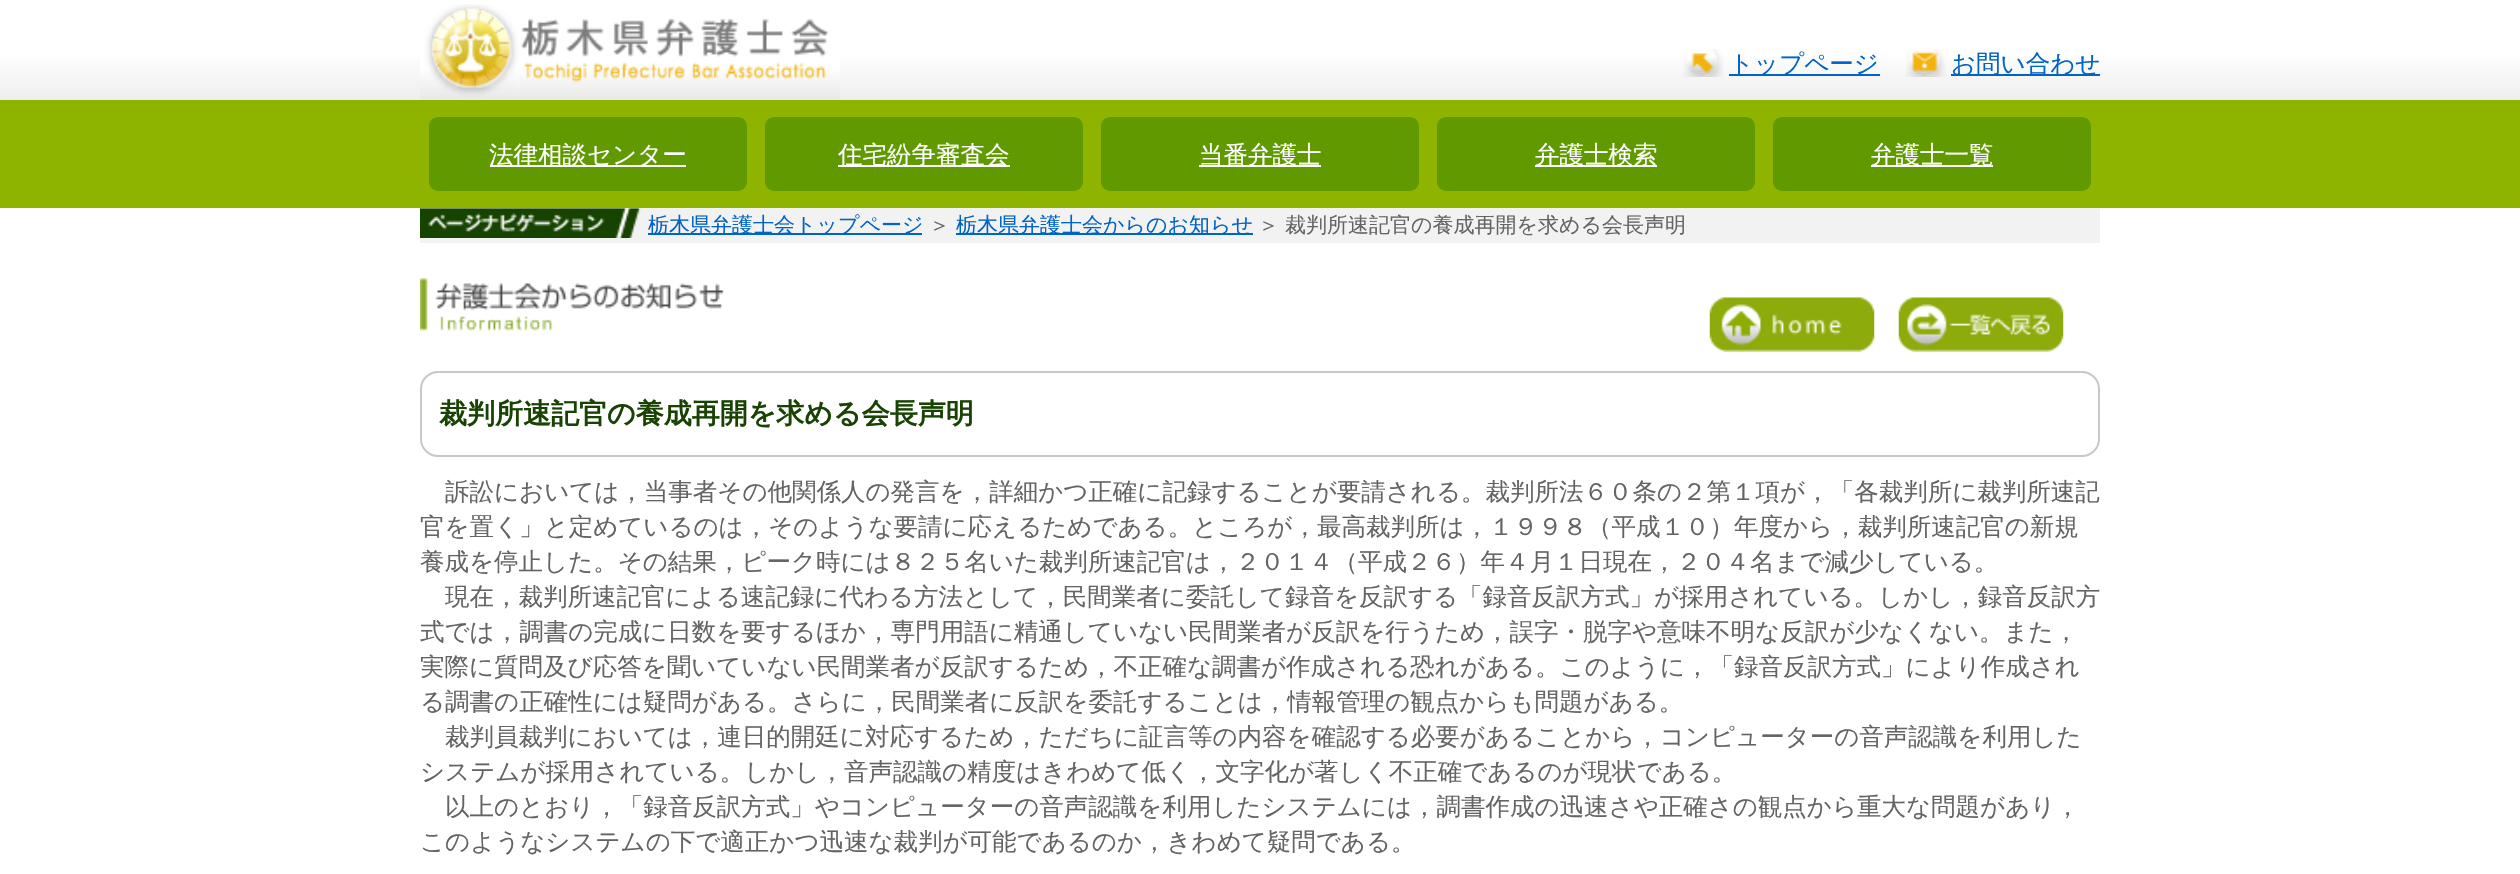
void draw(SkCanvas* canvas) {
    SkPaint paint;
    paint.setAntiAlias(true);
    canvas->clear(0xFFFFFFFF);
    {
        const SkColor colors[] = {0xFFFFFFFF, 0xFFEEEEEE};
        const float stops[] = {0.5f, 1};
        const SkPoint ends[] = {{1260, 0}, {1260, 100}};
        paint.setShader(SkGradientShader::MakeLinear(ends, colors, stops, 2, SkTileMode::kClamp));
        paint.setAlpha(255);
    }
    canvas->drawRect(SkRect::MakeXYWH(0, 57, 2520, 43), paint);
    canvas->drawImageRect(SkImages::DeferredFromEncodedData(SkData::MakeFromFileName("img1.png")), SkRect::MakeXYWH(420, 4, 420, 96), SkSamplingOptions());
    canvas->drawImageRect(SkImages::DeferredFromEncodedData(SkData::MakeFromFileName("img2.png")), SkRect::MakeXYWH(1683, 49, 41, 28), SkSamplingOptions());
    paint.setShader(nullptr);
    paint.setColor(0xFF0063C6);
    canvas->drawRect(SkRect::MakeXYWH(1729, 74, 151, 2), paint);
    SkFont font1(fontMgr->matchFamilyStyle("WenQuanYi Zen Hei", SkFontStyle(500, SkFontStyle::kNormal_Width, SkFontStyle::kUpright_Slant)), 24.5f);
    font1.setSubpixel(true);
    canvas->drawString("トップページ", 1729, 72, font1, paint);
    canvas->drawImageRect(SkImages::DeferredFromEncodedData(SkData::MakeFromFileName("img3.png")), SkRect::MakeXYWH(1905, 49, 41, 28), SkSamplingOptions());
    canvas->drawRect(SkRect::MakeXYWH(1951, 74, 149, 2), paint);
    canvas->drawString("お問い合わせ", 1951, 72, font1, paint);
    paint.setColor(0xFF8FB400);
    canvas->drawRect(SkRect::MakeXYWH(0, 100, 2520, 108), paint);
    paint.setColor(0xFF609900);
    canvas->drawRoundRect(SkRect::MakeXYWH(429, 117, 318, 74), 9, 9, paint);
    paint.setColor(0xFFFFFFFF);
    canvas->drawRect(SkRect::MakeXYWH(490, 165, 196, 2), paint);
    canvas->drawString("法律相談センター", 489, 163, font1, paint);
    paint.setColor(0xFF609900);
    canvas->drawRoundRect(SkRect::MakeXYWH(765, 117, 318, 74), 9, 9, paint);
    paint.setColor(0xFFFFFFFF);
    canvas->drawRect(SkRect::MakeXYWH(838, 165, 172, 2), paint);
    canvas->drawString("住宅紛争審査会", 838, 163, font1, paint);
    paint.setColor(0xFF609900);
    canvas->drawRoundRect(SkRect::MakeXYWH(1101, 117, 318, 74), 9, 9, paint);
    paint.setColor(0xFFFFFFFF);
    canvas->drawRect(SkRect::MakeXYWH(1199, 165, 122, 2), paint);
    canvas->drawString("当番弁護士", 1199, 163, font1, paint);
    paint.setColor(0xFF609900);
    canvas->drawRoundRect(SkRect::MakeXYWH(1437, 117, 318, 74), 9, 9, paint);
    paint.setColor(0xFFFFFFFF);
    canvas->drawRect(SkRect::MakeXYWH(1535, 165, 122, 2), paint);
    canvas->drawString("弁護士検索", 1535, 163, font1, paint);
    paint.setColor(0xFF609900);
    canvas->drawRoundRect(SkRect::MakeXYWH(1773, 117, 318, 74), 9, 9, paint);
    paint.setColor(0xFFFFFFFF);
    canvas->drawRect(SkRect::MakeXYWH(1871, 165, 122, 2), paint);
    canvas->drawString("弁護士一覧", 1871, 163, font1, paint);
    paint.setColor(0xFFF2F2F2);
    canvas->drawRect(SkRect::MakeXYWH(420, 208, 1680, 35), paint);
    canvas->drawImageRect(SkImages::DeferredFromEncodedData(SkData::MakeFromFileName("img4.png")), SkRect::MakeXYWH(420, 208, 221, 30), SkSamplingOptions());
    paint.setColor(0xFF0063C6);
    canvas->drawRect(SkRect::MakeXYWH(648, 233, 274, 2), paint);
    SkFont font2(fontMgr->matchFamilyStyle("WenQuanYi Zen Hei", SkFontStyle(500, SkFontStyle::kNormal_Width, SkFontStyle::kUpright_Slant)), 21);
    font2.setSubpixel(true);
    canvas->drawString("栃木県弁護士会トップページ", 648, 232, font2, paint);
    paint.setColor(0xFF646464);
    canvas->drawString("＞", 929, 232, font2, paint);
    paint.setColor(0xFF0063C6);
    canvas->drawRect(SkRect::MakeXYWH(956, 233, 297, 2), paint);
    canvas->drawString("栃木県弁護士会からのお知らせ", 956, 232, font2, paint);
    paint.setColor(0xFF646464);
    canvas->drawString("＞", 1258, 232, font2, paint);
    canvas->drawString("裁判所速記官の養成再開を求める会長声明", 1285, 232, font2, paint);
    canvas->drawImageRect(SkImages::DeferredFromEncodedData(SkData::MakeFromFileName("img5.png")), SkRect::MakeXYWH(420, 278, 304, 53), SkSamplingOptions());
    canvas->drawImageRect(SkImages::DeferredFromEncodedData(SkData::MakeFromFileName("img6.png")), SkRect::MakeXYWH(1709, 297, 166, 55), SkSamplingOptions());
    canvas->drawImageRect(SkImages::DeferredFromEncodedData(SkData::MakeFromFileName("img7.png")), SkRect::MakeXYWH(1898, 297, 166, 55), SkSamplingOptions());
    paint.setStyle(SkPaint::kStroke_Style);
    paint.setStrokeWidth(2);
    paint.setColor(0xFFC8C8C8);
    canvas->drawRoundRect(SkRect::MakeXYWH(421, 372, 1678, 84), 17, 17, paint);
    SkFont font3(fontMgr->matchFamilyStyle("WenQuanYi Zen Hei", SkFontStyle::Bold()), 28);
    font3.setSubpixel(true);
    paint.setStyle(SkPaint::kFill_Style);
    paint.setColor(0xFF194303);
    canvas->drawString("裁判所速記官の養成再開を求める会長声明", 439, 423, font3, paint);
    paint.setColor(0xFF646464);
    canvas->drawString("訴訟においては，当事者その他関係人の発言を，詳細かつ正確に記録することが要請される。裁判所法６０条の２第１項が，「各裁判所に裁判所速記", 445, 500, font1, paint);
    canvas->drawString("官を置く」と定めているのは，そのような要請に応えるためである。ところが，最高裁判所は，１９９８（平成１０）年度から，裁判所速記官の新規", 420, 535, font1, paint);
    canvas->drawString("養成を停止した。その結果，ピーク時には８２５名いた裁判所速記官は，２０１４（平成２６）年４月１日現在，２０４名まで減少している。", 420, 570, font1, paint);
    canvas->drawString("現在，裁判所速記官による速記録に代わる方法として，民間業者に委託して録音を反訳する「録音反訳方式」が採用されている。しかし，録音反訳方", 445, 605, font1, paint);
    canvas->drawString("式では，調書の完成に日数を要するほか，専門用語に精通していない民間業者が反訳を行うため，誤字・脱字や意味不明な反訳が少なくない。また，", 420, 640, font1, paint);
    canvas->drawString("実際に質問及び応答を聞いていない民間業者が反訳するため，不正確な調書が作成される恐れがある。このように，「録音反訳方式」により作成され", 420, 675, font1, paint);
    canvas->drawString("る調書の正確性には疑問がある。さらに，民間業者に反訳を委託することは，情報管理の観点からも問題がある。", 420, 710, font1, paint);
    canvas->drawString("裁判員裁判においては，連日的開廷に対応するため，ただちに証言等の内容を確認する必要があることから，コンピューターの音声認識を利用した", 445, 745, font1, paint);
    canvas->drawString("システムが採用されている。しかし，音声認識の精度はきわめて低く，文字化が著しく不正確であるのが現状である。", 420, 780, font1, paint);
    canvas->drawString("以上のとおり，「録音反訳方式」やコンピューターの音声認識を利用したシステムには，調書作成の迅速さや正確さの観点から重大な問題があり，", 445, 815, font1, paint);
    canvas->drawString("このようなシステムの下で適正かつ迅速な裁判が可能であるのか，きわめて疑問である。", 420, 850, font1, paint);
}
